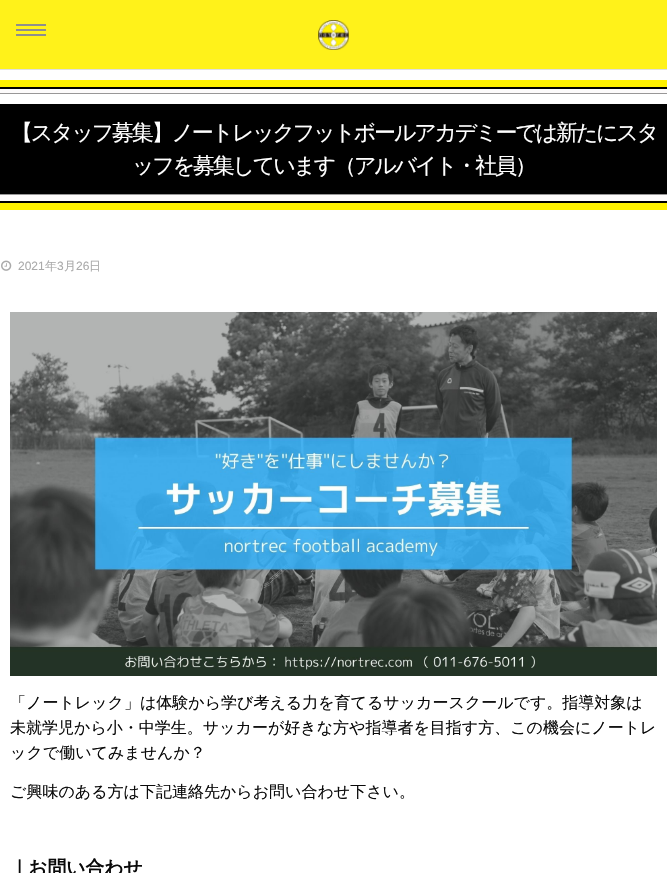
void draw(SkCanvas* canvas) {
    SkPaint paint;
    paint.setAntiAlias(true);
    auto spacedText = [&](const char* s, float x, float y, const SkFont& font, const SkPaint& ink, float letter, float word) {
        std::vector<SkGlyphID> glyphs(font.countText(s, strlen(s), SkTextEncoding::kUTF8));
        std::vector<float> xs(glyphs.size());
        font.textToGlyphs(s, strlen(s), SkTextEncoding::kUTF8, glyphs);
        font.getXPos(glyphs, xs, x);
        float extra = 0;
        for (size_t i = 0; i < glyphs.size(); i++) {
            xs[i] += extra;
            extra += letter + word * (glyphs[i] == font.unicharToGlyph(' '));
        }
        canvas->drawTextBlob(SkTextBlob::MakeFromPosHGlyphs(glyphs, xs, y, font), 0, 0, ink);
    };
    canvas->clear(0xFFFFFFFF);
    paint.setColor(0xFFFFF21A);
    canvas->drawRect(SkRect::MakeXYWH(0, 0, 667, 69), paint);
    paint.setColor(0xFFDFDFDF);
    canvas->drawRect(SkRect::MakeXYWH(0, 69, 667, 1), paint);
    paint.setColor(0xFF8E8E8E);
    canvas->drawRect(SkRect::MakeXYWH(16, 24, 30, 2), paint);
    canvas->drawRect(SkRect::MakeXYWH(16, 29, 30, 2), paint);
    canvas->drawRect(SkRect::MakeXYWH(16, 34, 30, 2), paint);
    canvas->drawImageRect(SkImages::DeferredFromEncodedData(SkData::MakeFromFileName("img1.png")), SkRect::MakeXYWH(318, 20, 31, 30), SkSamplingOptions());
    canvas->drawImageRect(SkImages::DeferredFromEncodedData(SkData::MakeFromFileName("img2.png")), SkRect::MakeXYWH(0, 80, 667, 14), SkSamplingOptions());
    paint.setColor(0xFF000000);
    canvas->drawRect(SkRect::MakeXYWH(0, 104, 667, 90), paint);
    SkFont font1(fontMgr->matchFamilyStyle("WenQuanYi Zen Hei", SkFontStyle(500, SkFontStyle::kNormal_Width, SkFontStyle::kUpright_Slant)), 22);
    font1.setSubpixel(true);
    paint.setColor(0xFFFFFFFF);
    spacedText("【スタッフ募集】ノートレックフットボールアカデミーでは新たにスタ", 11, 140, font1, paint, -2.2f, 0);
    spacedText("ッフを募集しています（アルバイト・社員）", 132, 173, font1, paint, -2.2f, 0);
    canvas->drawImageRect(SkImages::DeferredFromEncodedData(SkData::MakeFromFileName("img3.png")), SkRect::MakeXYWH(0, 194, 667, 16), SkSamplingOptions());
    canvas->drawImageRect(SkImages::DeferredFromEncodedData(SkData::MakeFromFileName("img4.png")), SkRect::MakeXYWH(1, 260, 11, 11), SkSamplingOptions());
    SkFont font2(fontMgr->matchFamilyStyle("Liberation Sans", SkFontStyle::Normal()), 12);
    font2.setSubpixel(true);
    paint.setColor(0xFFAAAAAA);
    canvas->drawString("2021", 18, 270, font2, paint);
    SkFont font3(fontMgr->matchFamilyStyle("WenQuanYi Zen Hei", SkFontStyle(500, SkFontStyle::kNormal_Width, SkFontStyle::kUpright_Slant)), 12);
    font3.setSubpixel(true);
    canvas->drawString("年", 45, 270, font3, paint);
    canvas->drawString("3", 57, 270, font2, paint);
    canvas->drawString("月", 64, 270, font3, paint);
    canvas->drawString("26", 76, 270, font2, paint);
    canvas->drawString("日", 89, 270, font3, paint);
    canvas->drawImageRect(SkImages::DeferredFromEncodedData(SkData::MakeFromFileName("img5.png")), SkRect::MakeXYWH(10, 312, 647, 364), SkSamplingOptions());
    SkFont font4(fontMgr->matchFamilyStyle("WenQuanYi Zen Hei", SkFontStyle(500, SkFontStyle::kNormal_Width, SkFontStyle::kUpright_Slant)), 16);
    font4.setSubpixel(true);
    paint.setColor(0xFF0A0A0A);
    canvas->drawString("「ノートレック」は体験から学び考える力を育てるサッカースクールです。指導対象は", 10, 708, font4, paint);
    canvas->drawString("未就学児から小・中学生。サッカーが好きな方や指導者を目指す方、この機会にノートレ", 10, 733, font4, paint);
    canvas->drawString("ックで働いてみませんか？", 10, 758, font4, paint);
    canvas->drawString("ご興味のある方は下記連絡先からお問い合わせ下さい。", 10, 797, font4, paint);
    SkFont font5(fontMgr->matchFamilyStyle("WenQuanYi Zen Hei", SkFontStyle::Bold()), 18.75f);
    font5.setSubpixel(true);
    canvas->drawString("｜お問い合わせ", 10, 874, font5, paint);
}
